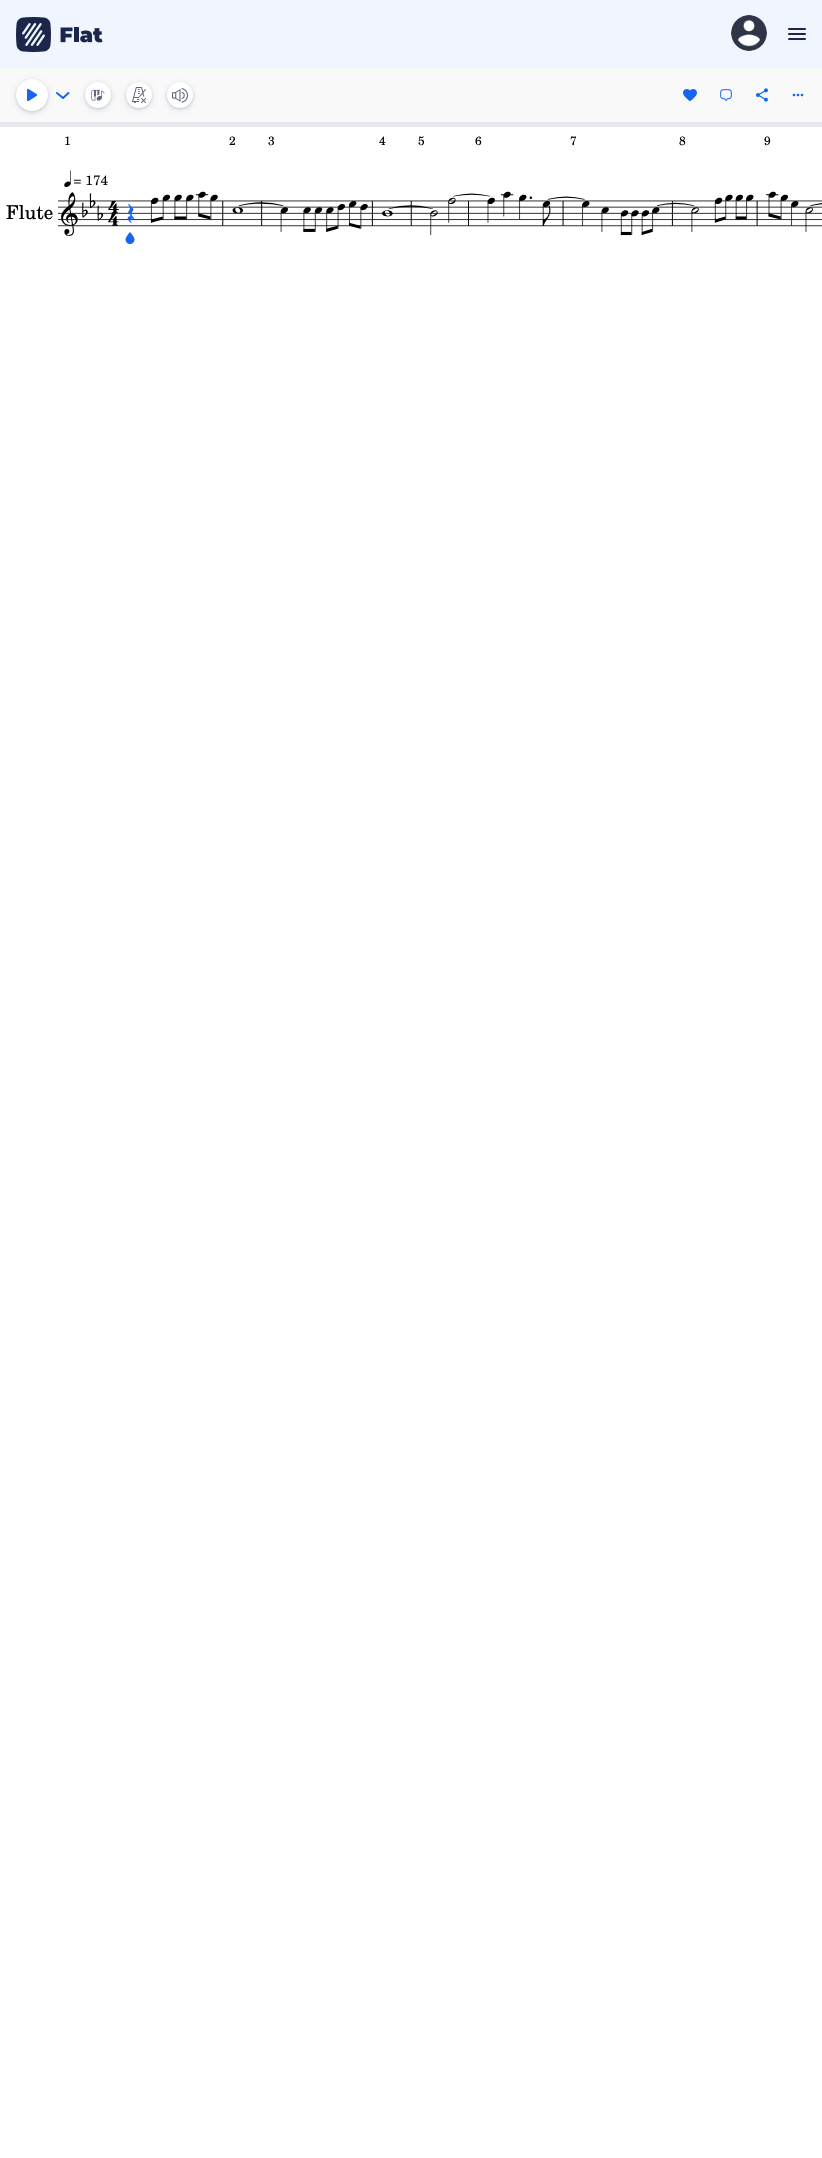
void draw(SkCanvas* canvas) {
    SkPaint paint;
    paint.setAntiAlias(true);
    canvas->clear(0xFFFFFFFF);
    paint.setColor(0xFFF1F6FE);
    canvas->drawRect(SkRect::MakeXYWH(0, 0, 822, 68), paint);
    canvas->drawImageRect(SkImages::DeferredFromEncodedData(SkData::MakeFromFileName("img1.png")), SkRect::MakeXYWH(16, 17, 87, 35), SkSamplingOptions());
    paint.setColor(0xFFFFFFFF);
    canvas->drawCircle(749, 33, 18, paint);
    canvas->drawImageRect(SkImages::DeferredFromEncodedData(SkData::MakeFromFileName("img2.png")), SkRect::MakeXYWH(731, 15, 36, 36), SkSamplingOptions());
    paint.setColor(0xFF1C264A);
    canvas->drawRoundRect(SkRect::MakeXYWH(788, 28, 18, 2), 1, 1, paint);
    canvas->drawRoundRect(SkRect::MakeXYWH(788, 33, 18, 2), 1, 1, paint);
    canvas->drawRoundRect(SkRect::MakeXYWH(788, 38, 18, 2), 1, 1, paint);
    paint.setColor(0xFFF9F9FA);
    canvas->drawRect(SkRect::MakeXYWH(0, 68, 822, 54), paint);
    paint.setColor(0x3328304F);
    paint.setMaskFilter(SkMaskFilter::MakeBlur(kNormal_SkBlurStyle, 1.5f));
    canvas->drawRoundRect(SkRect::MakeXYWH(16, 80, 32, 32), 16, 16, paint);
    paint.setMaskFilter(nullptr);
    paint.setColor(0x1A28304F);
    paint.setMaskFilter(SkMaskFilter::MakeBlur(kNormal_SkBlurStyle, 4));
    canvas->drawRoundRect(SkRect::MakeXYWH(16, 81, 32, 32), 16, 16, paint);
    paint.setMaskFilter(nullptr);
    paint.setColor(0xFFFFFFFF);
    canvas->drawCircle(32, 95, 16, paint);
    canvas->drawImageRect(SkImages::DeferredFromEncodedData(SkData::MakeFromFileName("img3.png")), SkRect::MakeXYWH(27, 88, 11, 14), SkSamplingOptions());
    paint.setStyle(SkPaint::kStroke_Style);
    paint.setStrokeWidth(2);
    paint.setStrokeCap(SkPaint::kRound_Cap);
    paint.setStrokeJoin(SkPaint::kRound_Join);
    paint.setColor(0xFF1565EF);
    canvas->drawPath(SkPathBuilder().moveTo(57, 93).lineTo(63, 98).lineTo(68.5f, 93).detach(), paint);
    paint.setStyle(SkPaint::kFill_Style);
    paint.setColor(0x3328304F);
    paint.setMaskFilter(SkMaskFilter::MakeBlur(kNormal_SkBlurStyle, 1.5f));
    canvas->drawRoundRect(SkRect::MakeXYWH(85, 83, 26, 26), 13, 13, paint);
    paint.setMaskFilter(nullptr);
    paint.setColor(0x1A28304F);
    paint.setMaskFilter(SkMaskFilter::MakeBlur(kNormal_SkBlurStyle, 4));
    canvas->drawRoundRect(SkRect::MakeXYWH(85, 84, 26, 26), 13, 13, paint);
    paint.setMaskFilter(nullptr);
    paint.setColor(0xFFFFFFFF);
    canvas->drawCircle(98, 95, 13, paint);
    canvas->drawImageRect(SkImages::DeferredFromEncodedData(SkData::MakeFromFileName("img4.png")), SkRect::MakeXYWH(91, 89, 14, 12), SkSamplingOptions());
    paint.setColor(0x3328304F);
    paint.setMaskFilter(SkMaskFilter::MakeBlur(kNormal_SkBlurStyle, 1.5f));
    canvas->drawRoundRect(SkRect::MakeXYWH(126, 83, 26, 26), 13, 13, paint);
    paint.setMaskFilter(nullptr);
    paint.setColor(0x1A28304F);
    paint.setMaskFilter(SkMaskFilter::MakeBlur(kNormal_SkBlurStyle, 4));
    canvas->drawRoundRect(SkRect::MakeXYWH(126, 84, 26, 26), 13, 13, paint);
    paint.setMaskFilter(nullptr);
    paint.setColor(0xFFFFFFFF);
    canvas->drawCircle(139, 95, 13, paint);
    canvas->drawImageRect(SkImages::DeferredFromEncodedData(SkData::MakeFromFileName("img5.png")), SkRect::MakeXYWH(132, 87, 14, 16), SkSamplingOptions());
    paint.setColor(0x3328304F);
    paint.setMaskFilter(SkMaskFilter::MakeBlur(kNormal_SkBlurStyle, 1.5f));
    canvas->drawRoundRect(SkRect::MakeXYWH(167, 83, 26, 26), 13, 13, paint);
    paint.setMaskFilter(nullptr);
    paint.setColor(0x1A28304F);
    paint.setMaskFilter(SkMaskFilter::MakeBlur(kNormal_SkBlurStyle, 4));
    canvas->drawRoundRect(SkRect::MakeXYWH(167, 84, 26, 26), 13, 13, paint);
    paint.setMaskFilter(nullptr);
    paint.setColor(0xFFFFFFFF);
    canvas->drawCircle(180, 95, 13, paint);
    canvas->drawImageRect(SkImages::DeferredFromEncodedData(SkData::MakeFromFileName("img6.png")), SkRect::MakeXYWH(172, 88, 16, 15), SkSamplingOptions());
    canvas->drawImageRect(SkImages::DeferredFromEncodedData(SkData::MakeFromFileName("img7.png")), SkRect::MakeXYWH(683, 89, 14, 12), SkSamplingOptions());
    canvas->drawImageRect(SkImages::DeferredFromEncodedData(SkData::MakeFromFileName("img8.png")), SkRect::MakeXYWH(720, 89, 12, 12), SkSamplingOptions());
    canvas->drawImageRect(SkImages::DeferredFromEncodedData(SkData::MakeFromFileName("img9.png")), SkRect::MakeXYWH(756, 88, 12, 14), SkSamplingOptions());
    canvas->drawImageRect(SkImages::DeferredFromEncodedData(SkData::MakeFromFileName("img10.png")), SkRect::MakeXYWH(792, 93, 12, 4), SkSamplingOptions());
    paint.setColor(0xFFE7E8EC);
    canvas->drawRect(SkRect::MakeXYWH(0, 122, 822, 5), paint);
    SkFont font1(fontMgr->matchFamilyStyle("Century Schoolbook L", SkFontStyle::Normal()), 12);
    font1.setSubpixel(true);
    paint.setColor(0xFF000000);
    canvas->drawString("1", 64, 145, font1, paint);
    canvas->drawString("2", 229, 145, font1, paint);
    canvas->drawString("3", 268, 145, font1, paint);
    canvas->drawString("4", 379, 145, font1, paint);
    canvas->drawString("5", 418, 145, font1, paint);
    canvas->drawString("6", 475, 145, font1, paint);
    canvas->drawString("7", 570, 145, font1, paint);
    canvas->drawString("8", 679, 145, font1, paint);
    canvas->drawString("9", 764, 145, font1, paint);
    {
        const SkColor colors[] = {0xFF919191, 0xFFFFFFFF};
        const float stops[] = {0, 1};
        SkMatrix m = SkMatrix::Translate(58, 1151).preScale(11, 999);
        paint.setShader(SkGradientShader::MakeRadial({0, 0}, 1, colors, stops, 2, SkTileMode::kClamp, 0, &m));
        paint.setAlpha(255);
    }
    canvas->drawRect(SkRect::MakeXYWH(66, 557, 3, 1188), paint);
    {
        const SkColor colors[] = {0xFFFFFFFF, 0xFFFFFFFF, 0x80FFFFFF};
        const float stops[] = {0, 0.01f, 0.03f};
        const SkPoint ends[] = {{58, 1151}, {822, 1151}};
        paint.setShader(SkGradientShader::MakeLinear(ends, colors, stops, 3, SkTileMode::kClamp));
        paint.setAlpha(255);
    }
    canvas->drawRect(SkRect::MakeXYWH(66, 557, 3, 1188), paint);
    canvas->drawImageRect(SkImages::DeferredFromEncodedData(SkData::MakeFromFileName("img11.png")), SkRect::MakeXYWH(58, 170, 764, 74), SkSamplingOptions());
    SkFont font2(fontMgr->matchFamilyStyle("Century Schoolbook L", SkFontStyle::Normal()), 19);
    font2.setSubpixel(true);
    paint.setShader(nullptr);
    paint.setColor(0xFF000000);
    canvas->drawString("Flute", 6, 219, font2, paint);
}
